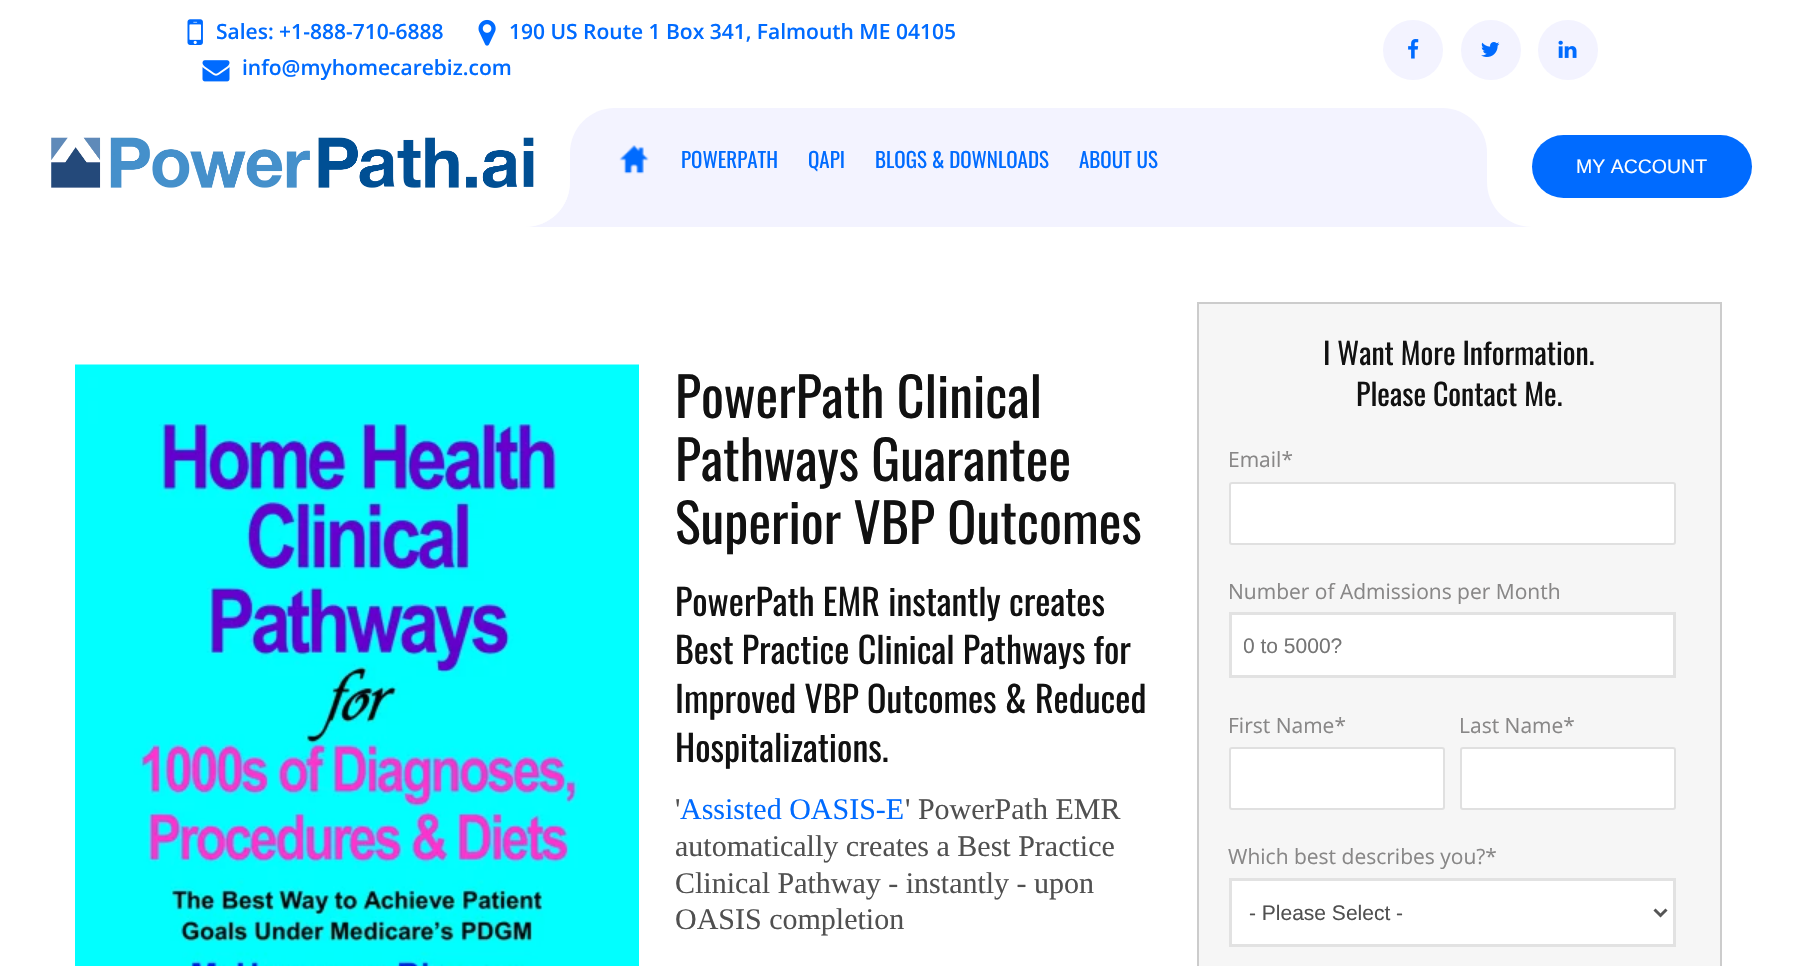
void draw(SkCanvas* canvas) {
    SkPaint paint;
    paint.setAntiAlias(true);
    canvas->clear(0xFFFFFFFF);
    canvas->drawImageRect(SkImages::DeferredFromEncodedData(SkData::MakeFromFileName("img1.png")), SkRect::MakeXYWH(187, 19, 16, 26), SkSamplingOptions());
    SkFont font1(fontMgr->matchFamilyStyle("Open Sans", SkFontStyle(600, SkFontStyle::kNormal_Width, SkFontStyle::kUpright_Slant)), 21);
    font1.setSubpixel(true);
    paint.setColor(0xFF006BFF);
    canvas->drawString("Sales: +1-888-710-6888", 216, 39, font1, paint);
    canvas->drawImageRect(SkImages::DeferredFromEncodedData(SkData::MakeFromFileName("img2.png")), SkRect::MakeXYWH(478, 19, 18, 27), SkSamplingOptions());
    canvas->drawString("190 US Route 1 Box 341, Falmouth ME 04105", 509, 39, font1, paint);
    canvas->drawImageRect(SkImages::DeferredFromEncodedData(SkData::MakeFromFileName("img3.png")), SkRect::MakeXYWH(202, 60, 28, 22), SkSamplingOptions());
    canvas->drawString("info@myhomecarebiz.com", 242, 75, font1, paint);
    paint.setColor(0xFFF3F3FF);
    canvas->drawCircle(1413, 50, 30, paint);
    canvas->drawImageRect(SkImages::DeferredFromEncodedData(SkData::MakeFromFileName("img4.png")), SkRect::MakeXYWH(1408, 39, 11, 20), SkSamplingOptions());
    canvas->drawCircle(1491, 50, 30, paint);
    canvas->drawImageRect(SkImages::DeferredFromEncodedData(SkData::MakeFromFileName("img5.png")), SkRect::MakeXYWH(1481, 42, 19, 15), SkSamplingOptions());
    canvas->drawCircle(1568, 50, 30, paint);
    canvas->drawImageRect(SkImages::DeferredFromEncodedData(SkData::MakeFromFileName("img6.png")), SkRect::MakeXYWH(1558, 40, 19, 18), SkSamplingOptions());
    canvas->drawPath(SkPathBuilder().moveTo(615, 108).lineTo(1442, 108).cubicTo(1467, 108, 1487, 128, 1487, 153).lineTo(1487, 227).lineTo(570, 227).lineTo(570, 153).cubicTo(570, 128, 590, 108, 615, 108).close().detach(), paint);
    canvas->drawRect(SkRect::MakeXYWH(525, 167, 1007, 60), paint);
    paint.setColor(0xFFFFFFFF);
    canvas->drawRoundRect(SkRect::MakeXYWH(45, 101, 525, 126), 45, 45, paint);
    canvas->save();
    canvas->clipPath(SkPathBuilder().moveTo(90, 101).lineTo(525, 101).cubicTo(550, 101, 570, 121, 570, 146).lineTo(570, 182).cubicTo(570, 207, 550, 227, 525, 227).lineTo(90, 227).cubicTo(65, 227, 45, 207, 45, 182).lineTo(45, 146).cubicTo(45, 121, 65, 101, 90, 101).close().detach(), true);
    canvas->drawRoundRect(SkRect::MakeXYWH(45, 111, 525, 126), 45, 45, paint);
    canvas->restore();
    canvas->drawImageRect(SkImages::DeferredFromEncodedData(SkData::MakeFromFileName("img7.png")), SkRect::MakeXYWH(51, 137, 483, 51), SkSamplingOptions());
    canvas->drawImageRect(SkImages::DeferredFromEncodedData(SkData::MakeFromFileName("img8.png")), SkRect::MakeXYWH(619, 145, 30, 29), SkSamplingOptions());
    SkFont font2(fontMgr->matchFamilyStyle("Oswald", SkFontStyle::Normal()), 21);
    font2.setSubpixel(true);
    paint.setColor(0xFF006BFF);
    canvas->drawString("POWERPATH", 681, 168, font2, paint);
    canvas->drawString("QAPI", 808, 168, font2, paint);
    canvas->drawString("BLOGS & DOWNLOADS", 875, 168, font2, paint);
    canvas->drawString("ABOUT US", 1079, 168, font2, paint);
    paint.setColor(0xFFFFFFFF);
    canvas->drawPath(SkPathBuilder().moveTo(1487, 108).lineTo(1752, 108).lineTo(1752, 227).lineTo(1532, 227).cubicTo(1507, 227, 1487, 207, 1487, 182).close().detach(), paint);
    paint.setColor(0xFF006BFF);
    canvas->drawRoundRect(SkRect::MakeXYWH(1532, 135, 220, 63), 31.5f, 31.5f, paint);
    SkFont font3(fontMgr->matchFamilyStyle("Liberation Sans", SkFontStyle::Normal()), 19.5f);
    font3.setSubpixel(true);
    paint.setColor(0xFFFFFFFF);
    canvas->drawString("MY ACCOUNT", 1576, 173, font3, paint);
    canvas->drawImageRect(SkImages::DeferredFromEncodedData(SkData::MakeFromFileName("img9.png")), SkRect::MakeXYWH(75, 364, 564, 602), SkSamplingOptions());
    SkFont font4(fontMgr->matchFamilyStyle("Oswald", SkFontStyle::Normal()), 54);
    font4.setSubpixel(true);
    paint.setColor(0xFF111111);
    canvas->drawString("PowerPath Clinical", 675, 418, font4, paint);
    canvas->drawString("Pathways Guarantee", 675, 481, font4, paint);
    canvas->drawString("Superior VBP Outcomes", 675, 544, font4, paint);
    SkFont font5(fontMgr->matchFamilyStyle("Oswald", SkFontStyle::Normal()), 36);
    font5.setSubpixel(true);
    canvas->drawString("PowerPath EMR instantly creates", 675, 616, font5, paint);
    canvas->drawString("Best Practice Clinical Pathways for", 675, 664, font5, paint);
    canvas->drawString("Improved VBP Outcomes & Reduced", 675, 713, font5, paint);
    canvas->drawString("Hospitalizations.", 675, 762, font5, paint);
    SkFont font6(fontMgr->matchFamilyStyle("Liberation Serif", SkFontStyle::Normal()), 30);
    font6.setSubpixel(true);
    paint.setColor(0xFF505050);
    canvas->drawString("'", 675, 819, font6, paint);
    paint.setColor(0xFF006BFF);
    canvas->drawString("Assisted OASIS-E", 680, 819, font6, paint);
    paint.setColor(0xFF505050);
    canvas->drawString("' PowerPath EMR", 905, 819, font6, paint);
    canvas->drawString("automatically creates a Best Practice", 675, 856, font6, paint);
    canvas->drawString("Clinical Pathway - instantly - upon", 675, 893, font6, paint);
    canvas->drawString("OASIS completion", 675, 929, font6, paint);
    paint.setColor(0xFFF6F6F6);
    canvas->drawRect(SkRect::MakeXYWH(1198, 303, 523, 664), paint);
    paint.setStyle(SkPaint::kStroke_Style);
    paint.setStrokeWidth(2);
    paint.setColor(0xFFCCCCCC);
    canvas->drawRect(SkRect::MakeXYWH(1198, 303, 523, 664), paint);
    SkFont font7(fontMgr->matchFamilyStyle("Oswald", SkFontStyle::Normal()), 30);
    font7.setSubpixel(true);
    paint.setStyle(SkPaint::kFill_Style);
    paint.setColor(0xFF111111);
    canvas->drawString("I Want More Information.", 1323, 365, font7, paint);
    canvas->drawString("Please Contact Me.", 1356, 406, font7, paint);
    SkFont font8(fontMgr->matchFamilyStyle("Open Sans", SkFontStyle::Normal()), 21);
    font8.setSubpixel(true);
    paint.setColor(0xFF888787);
    canvas->drawString("Email*", 1228, 467, font8, paint);
    paint.setColor(0xFFFFFFFF);
    canvas->drawRoundRect(SkRect::MakeXYWH(1230, 483, 445, 61), 2, 2, paint);
    paint.setStyle(SkPaint::kStroke_Style);
    paint.setColor(0xFFE0E0E0);
    canvas->drawRoundRect(SkRect::MakeXYWH(1230, 483, 445, 61), 2, 2, paint);
    paint.setStyle(SkPaint::kFill_Style);
    paint.setColor(0xFF888787);
    canvas->drawString("Number of Admissions per Month", 1228, 599, font8, paint);
    paint.setColor(0xFFFFFFFF);
    canvas->drawRect(SkRect::MakeXYWH(1230.5f, 613.5f, 444, 63), paint);
    paint.setStyle(SkPaint::kStroke_Style);
    paint.setStrokeWidth(3);
    paint.setColor(0xFFE2E2E2);
    canvas->drawRect(SkRect::MakeXYWH(1230.5f, 613.5f, 444, 63), paint);
    canvas->save();
    canvas->clipRect(SkRect::MakeXYWH(1244, 633, 394, 24));
    SkFont font9(fontMgr->matchFamilyStyle("Liberation Sans", SkFontStyle::Normal()), 21);
    font9.setSubpixel(true);
    paint.setStyle(SkPaint::kFill_Style);
    paint.setColor(0xFF757575);
    canvas->drawString("0 to 5000?", 1243, 653, font9, paint);
    canvas->restore();
    paint.setColor(0xFF888787);
    canvas->drawString("First Name*", 1228, 733, font8, paint);
    paint.setColor(0xFFFFFFFF);
    canvas->drawRoundRect(SkRect::MakeXYWH(1230, 748, 214, 61), 2, 2, paint);
    paint.setStyle(SkPaint::kStroke_Style);
    paint.setStrokeWidth(2);
    paint.setColor(0xFFE0E0E0);
    canvas->drawRoundRect(SkRect::MakeXYWH(1230, 748, 214, 61), 2, 2, paint);
    paint.setStyle(SkPaint::kFill_Style);
    paint.setColor(0xFF888787);
    canvas->drawString("Last Name*", 1459, 733, font8, paint);
    paint.setColor(0xFFFFFFFF);
    canvas->drawRoundRect(SkRect::MakeXYWH(1461, 748, 214, 61), 2, 2, paint);
    paint.setStyle(SkPaint::kStroke_Style);
    paint.setColor(0xFFE0E0E0);
    canvas->drawRoundRect(SkRect::MakeXYWH(1461, 748, 214, 61), 2, 2, paint);
    paint.setStyle(SkPaint::kFill_Style);
    paint.setColor(0xFF888787);
    canvas->drawString("Which best describes you?*", 1228, 864, font8, paint);
    paint.setColor(0xFFFFFFFF);
    canvas->drawRect(SkRect::MakeXYWH(1230.5f, 879.5f, 444, 66), paint);
    paint.setStyle(SkPaint::kStroke_Style);
    paint.setStrokeWidth(3);
    paint.setColor(0xFFE2E2E2);
    canvas->drawRect(SkRect::MakeXYWH(1230.5f, 879.5f, 444, 66), paint);
    paint.setColor(0xFF555555);
    canvas->drawPath(SkPathBuilder().moveTo(1654.5f, 909.5f).lineTo(1660.5f, 915.5f).lineTo(1666.5f, 909.5f).detach(), paint);
    paint.setStyle(SkPaint::kFill_Style);
    paint.setColor(0xFF505050);
    canvas->drawString("- Please Select -", 1249, 920, font9, paint);
}
